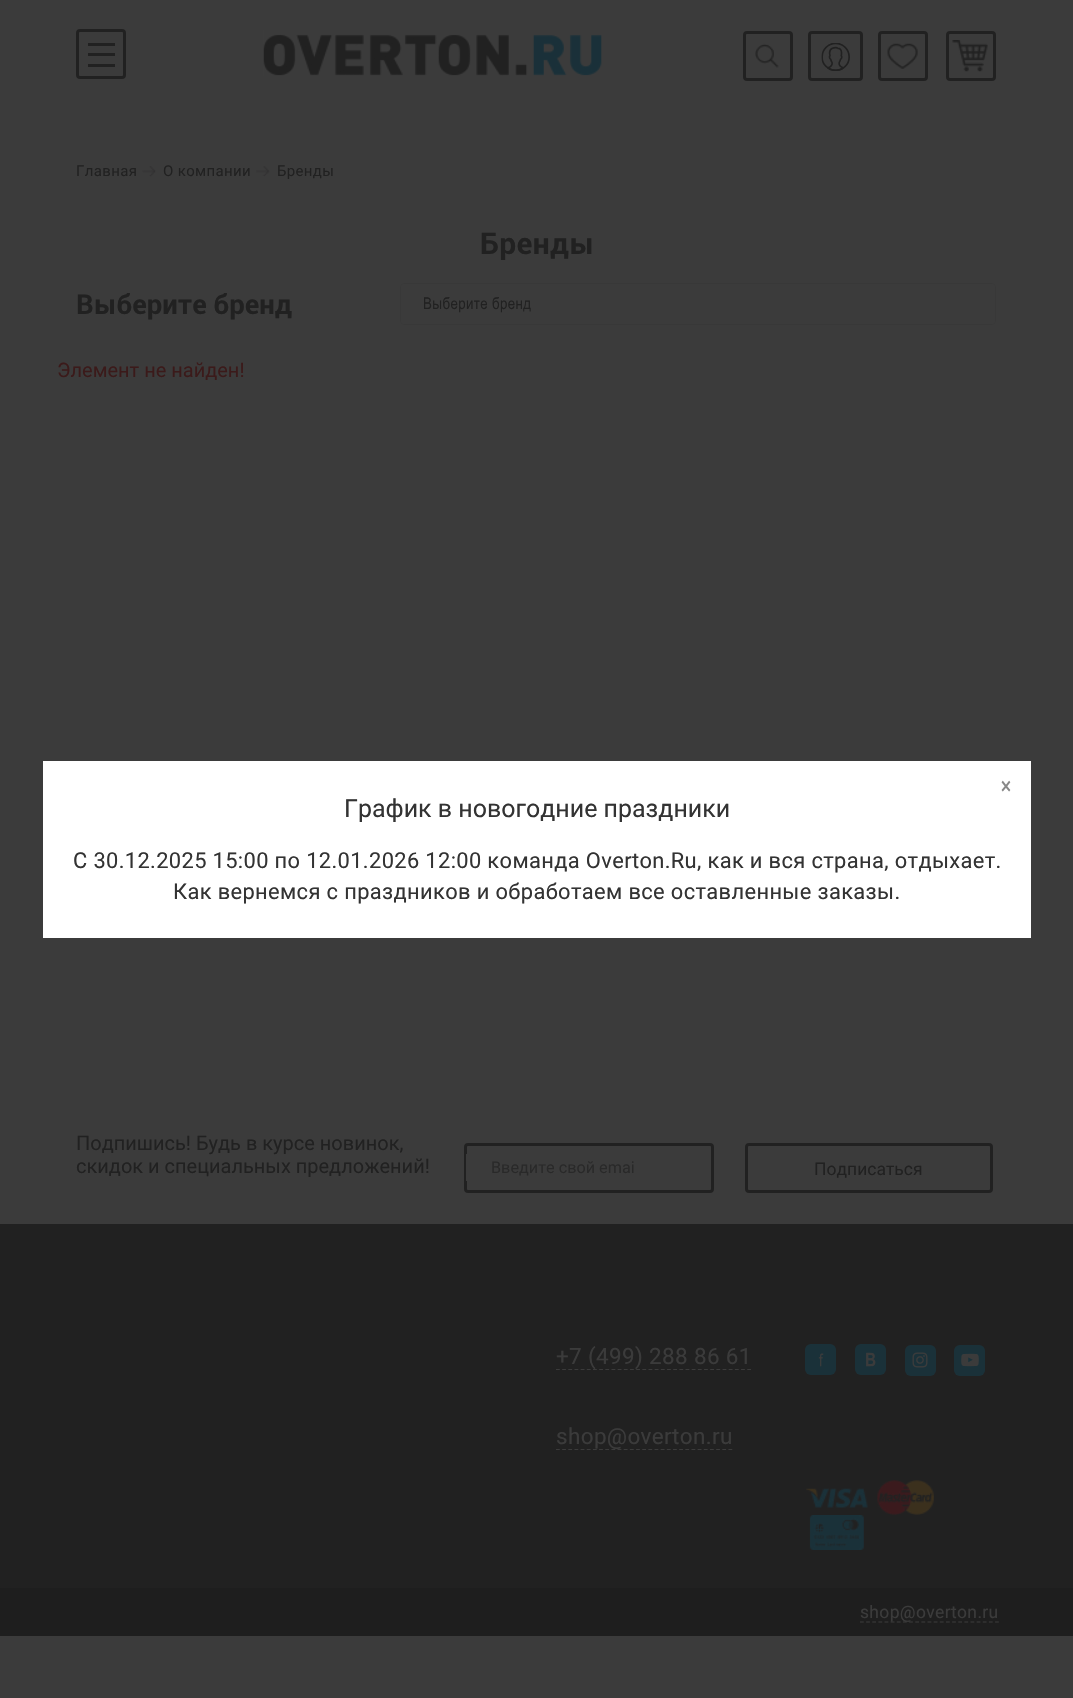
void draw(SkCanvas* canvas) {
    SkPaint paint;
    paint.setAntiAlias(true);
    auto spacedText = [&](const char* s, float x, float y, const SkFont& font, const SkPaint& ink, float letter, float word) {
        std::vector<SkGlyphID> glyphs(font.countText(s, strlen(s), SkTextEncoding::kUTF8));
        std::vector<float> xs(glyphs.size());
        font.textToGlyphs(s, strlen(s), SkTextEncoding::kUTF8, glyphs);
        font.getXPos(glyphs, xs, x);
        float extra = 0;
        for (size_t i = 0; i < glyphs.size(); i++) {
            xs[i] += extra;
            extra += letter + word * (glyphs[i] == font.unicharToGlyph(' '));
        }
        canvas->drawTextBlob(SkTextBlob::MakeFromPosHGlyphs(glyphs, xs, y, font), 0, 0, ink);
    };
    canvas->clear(0xFF3B3B3B);
    paint.setStyle(SkPaint::kStroke_Style);
    paint.setStrokeWidth(3);
    paint.setColor(0xFF212121);
    canvas->drawRoundRect(SkRect::MakeXYWH(77.5f, 30.5f, 47, 47), 2.5f, 2.5f, paint);
    paint.setStyle(SkPaint::kFill_Style);
    canvas->drawRect(SkRect::MakeXYWH(88, 43, 27, 3), paint);
    canvas->drawRect(SkRect::MakeXYWH(88, 53, 27, 3), paint);
    canvas->drawRect(SkRect::MakeXYWH(88, 64, 27, 3), paint);
    canvas->drawImageRect(SkImages::DeferredFromEncodedData(SkData::MakeFromFileName("img1.png")), SkRect::MakeXYWH(263, 30, 339, 46), SkSamplingOptions());
    canvas->drawImageRect(SkImages::DeferredFromEncodedData(SkData::MakeFromFileName("img2.png")), SkRect::MakeXYWH(755, 43, 24, 25), SkSamplingOptions());
    paint.setStyle(SkPaint::kStroke_Style);
    canvas->drawRoundRect(SkRect::MakeXYWH(744.5f, 32.5f, 47, 47), 2.5f, 2.5f, paint);
    canvas->drawRoundRect(SkRect::MakeXYWH(809.5f, 32.5f, 52, 47), 2.5f, 2.5f, paint);
    canvas->drawImageRect(SkImages::DeferredFromEncodedData(SkData::MakeFromFileName("img3.png")), SkRect::MakeXYWH(821, 43, 29, 28), SkSamplingOptions());
    canvas->drawRoundRect(SkRect::MakeXYWH(879.5f, 32.5f, 47, 47), 2.5f, 2.5f, paint);
    canvas->drawImageRect(SkImages::DeferredFromEncodedData(SkData::MakeFromFileName("img4.png")), SkRect::MakeXYWH(887, 43, 31, 26), SkSamplingOptions());
    canvas->drawRoundRect(SkRect::MakeXYWH(947.5f, 32.5f, 47, 47), 2.5f, 2.5f, paint);
    canvas->drawImageRect(SkImages::DeferredFromEncodedData(SkData::MakeFromFileName("img5.png")), SkRect::MakeXYWH(952, 40, 36, 32), SkSamplingOptions());
    SkFont font1(fontMgr->matchFamilyStyle("Roboto", SkFontStyle::Normal()), 15);
    font1.setSubpixel(true);
    paint.setStyle(SkPaint::kFill_Style);
    spacedText("Главная", 76, 176, font1, paint, 0.35f, 0);
    canvas->drawImageRect(SkImages::DeferredFromEncodedData(SkData::MakeFromFileName("img6.png")), SkRect::MakeXYWH(142, 166, 14, 11), SkSamplingOptions());
    spacedText("О компании", 163, 176, font1, paint, 0.35f, 0);
    canvas->drawImageRect(SkImages::DeferredFromEncodedData(SkData::MakeFromFileName("img7.png")), SkRect::MakeXYWH(256, 166, 14, 11), SkSamplingOptions());
    spacedText("Бренды", 277, 176, font1, paint, 0.35f, 0);
    SkFont font2(fontMgr->matchFamilyStyle("Roboto", SkFontStyle::Bold()), 30);
    font2.setSubpixel(true);
    spacedText("Бренды", 480, 254, font2, paint, 0.35f, 0);
    SkFont font3(fontMgr->matchFamilyStyle("Roboto", SkFontStyle::Bold()), 27.5f);
    font3.setSubpixel(true);
    canvas->drawString("Выберите бренд", 76, 314, font3, paint);
    paint.setStyle(SkPaint::kStroke_Style);
    paint.setStrokeWidth(1);
    paint.setColor(0xFF383838);
    canvas->drawRoundRect(SkRect::MakeXYWH(400.5f, 283.5f, 595, 41), 3.5f, 3.5f, paint);
    SkFont font4(fontMgr->matchFamilyStyle("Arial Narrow", SkFontStyle::Normal()), 16.25f);
    font4.setSubpixel(true);
    paint.setStyle(SkPaint::kFill_Style);
    paint.setColor(0xFF212121);
    spacedText("Выберите бренд", 423, 309, font4, paint, 0.35f, 0);
    SkFont font5(fontMgr->matchFamilyStyle("Roboto", SkFontStyle::Normal()), 20);
    font5.setSubpixel(true);
    paint.setColor(0xFF3B1A1A);
    canvas->drawString("Элемент не найден!", 57, 377, font5, paint);
    paint.setColor(0xFFFFFFFF);
    canvas->drawRect(SkRect::MakeXYWH(43, 761, 988, 177), paint);
    SkFont font6(fontMgr->matchFamilyStyle("Arial Narrow", SkFontStyle::Normal()), 25);
    font6.setSubpixel(true);
    paint.setColor(0xFF888888);
    canvas->drawString("×", 1000, 795, font6, paint);
    SkFont font7(fontMgr->matchFamilyStyle("Roboto", SkFontStyle::Normal()), 25);
    font7.setSubpixel(true);
    paint.setColor(0xFF333333);
    canvas->drawString("График в новогодние праздники", 344, 817, font7, paint);
    SkFont font8(fontMgr->matchFamilyStyle("Roboto", SkFontStyle::Normal()), 21.9f);
    font8.setSubpixel(true);
    spacedText("С 30.12.2025 15:00 по 12.01.2026 12:00 команда Overton.Ru, как и вся страна, отдыхает.", 73, 868, font8, paint, 0.35f, 0);
    spacedText("Как вернемся с праздников и обработаем все оставленные заказы.", 173, 899, font8, paint, 0.35f, 0);
    paint.setColor(0xFF212121);
    canvas->drawString("Подпишись! Будь в курсе новинок,", 76, 1150, font5, paint);
    canvas->drawString("скидок и специальных предложений!", 76, 1173, font5, paint);
    paint.setStyle(SkPaint::kStroke_Style);
    paint.setStrokeWidth(3);
    canvas->drawRoundRect(SkRect::MakeXYWH(465.5f, 1144.5f, 247, 47), 2.5f, 2.5f, paint);
    paint.setStyle(SkPaint::kFill_Style);
    paint.setColor(0xFF3B3B3B);
    canvas->drawRect(SkRect::MakeXYWH(466, 1154, 1, 27), paint);
    SkFont font9(fontMgr->matchFamilyStyle("Roboto", SkFontStyle::Normal()), 16.25f);
    font9.setSubpixel(true);
    paint.setColor(0xFF292929);
    canvas->drawString("Введите свой emai", 491, 1173, font9, paint);
    paint.setStyle(SkPaint::kStroke_Style);
    paint.setColor(0xFF212121);
    canvas->drawRoundRect(SkRect::MakeXYWH(746.5f, 1144.5f, 245, 47), 2.5f, 2.5f, paint);
    SkFont font10(fontMgr->matchFamilyStyle("Roboto", SkFontStyle::Normal()), 17.5f);
    font10.setSubpixel(true);
    paint.setStyle(SkPaint::kFill_Style);
    canvas->drawString("Подписаться", 814, 1175, font10, paint);
    canvas->drawRect(SkRect::MakeXYWH(0, 1224, 1073, 364), paint);
    paint.setStyle(SkPaint::kStroke_Style);
    paint.setStrokeWidth(1.2f);
    paint.setColor(0xFF3B3B3B);
    paint.setPathEffect(SkDashPathEffect::Make({{3.75f, 2.42f}}, 0));
    canvas->drawPath(SkPathBuilder().moveTo(556, 1369.5f).lineTo(751, 1369.5f).detach(), paint);
    paint.setPathEffect(nullptr);
    SkFont font11(fontMgr->matchFamilyStyle("Roboto", SkFontStyle::Normal()), 22.5f);
    font11.setSubpixel(true);
    paint.setStyle(SkPaint::kFill_Style);
    spacedText("+7 (499) 288 86 61", 556, 1364, font11, paint, 0.35f, 0);
    paint.setStyle(SkPaint::kStroke_Style);
    paint.setPathEffect(SkDashPathEffect::Make({{3.75f, 2.41f}}, 0));
    canvas->drawPath(SkPathBuilder().moveTo(556, 1449.5f).lineTo(732.5f, 1449.5f).detach(), paint);
    paint.setPathEffect(nullptr);
    paint.setStyle(SkPaint::kFill_Style);
    spacedText("shop@overton.ru", 556, 1444, font11, paint, 0.35f, 0);
    paint.setColor(0xFF1A3139);
    canvas->drawRoundRect(SkRect::MakeXYWH(805, 1344, 31, 31), 6, 6, paint);
    canvas->drawImageRect(SkImages::DeferredFromEncodedData(SkData::MakeFromFileName("img8.png")), SkRect::MakeXYWH(818, 1353, 6, 14), SkSamplingOptions());
    canvas->drawRoundRect(SkRect::MakeXYWH(855, 1344, 31, 31), 6, 6, paint);
    canvas->drawImageRect(SkImages::DeferredFromEncodedData(SkData::MakeFromFileName("img9.png")), SkRect::MakeXYWH(866, 1352, 10, 15), SkSamplingOptions());
    canvas->drawRoundRect(SkRect::MakeXYWH(905, 1345, 31, 31), 6, 6, paint);
    canvas->drawImageRect(SkImages::DeferredFromEncodedData(SkData::MakeFromFileName("img10.png")), SkRect::MakeXYWH(912, 1352, 16, 16), SkSamplingOptions());
    canvas->drawRoundRect(SkRect::MakeXYWH(954, 1345, 31, 31), 6, 6, paint);
    canvas->drawImageRect(SkImages::DeferredFromEncodedData(SkData::MakeFromFileName("img11.png")), SkRect::MakeXYWH(961, 1353, 18, 14), SkSamplingOptions());
    canvas->drawImageRect(SkImages::DeferredFromEncodedData(SkData::MakeFromFileName("img12.png")), SkRect::MakeXYWH(806, 1488, 62, 20), SkSamplingOptions());
    canvas->drawImageRect(SkImages::DeferredFromEncodedData(SkData::MakeFromFileName("img13.png")), SkRect::MakeXYWH(877, 1480, 57, 35), SkSamplingOptions());
    canvas->drawImageRect(SkImages::DeferredFromEncodedData(SkData::MakeFromFileName("img14.png")), SkRect::MakeXYWH(809, 1515, 55, 35), SkSamplingOptions());
    paint.setColor(0xFF1E1E1E);
    canvas->drawRect(SkRect::MakeXYWH(0, 1588, 1073, 48), paint);
    paint.setStyle(SkPaint::kStroke_Style);
    paint.setColor(0xFF3B3B3B);
    paint.setPathEffect(SkDashPathEffect::Make({{3.75f, 2.39f}}, 0));
    canvas->drawPath(SkPathBuilder().moveTo(860, 1622).lineTo(999, 1622).detach(), paint);
    paint.setPathEffect(nullptr);
    paint.setStyle(SkPaint::kFill_Style);
    spacedText("shop@overton.ru", 860, 1618, font10, paint, 0.35f, 0);
}
